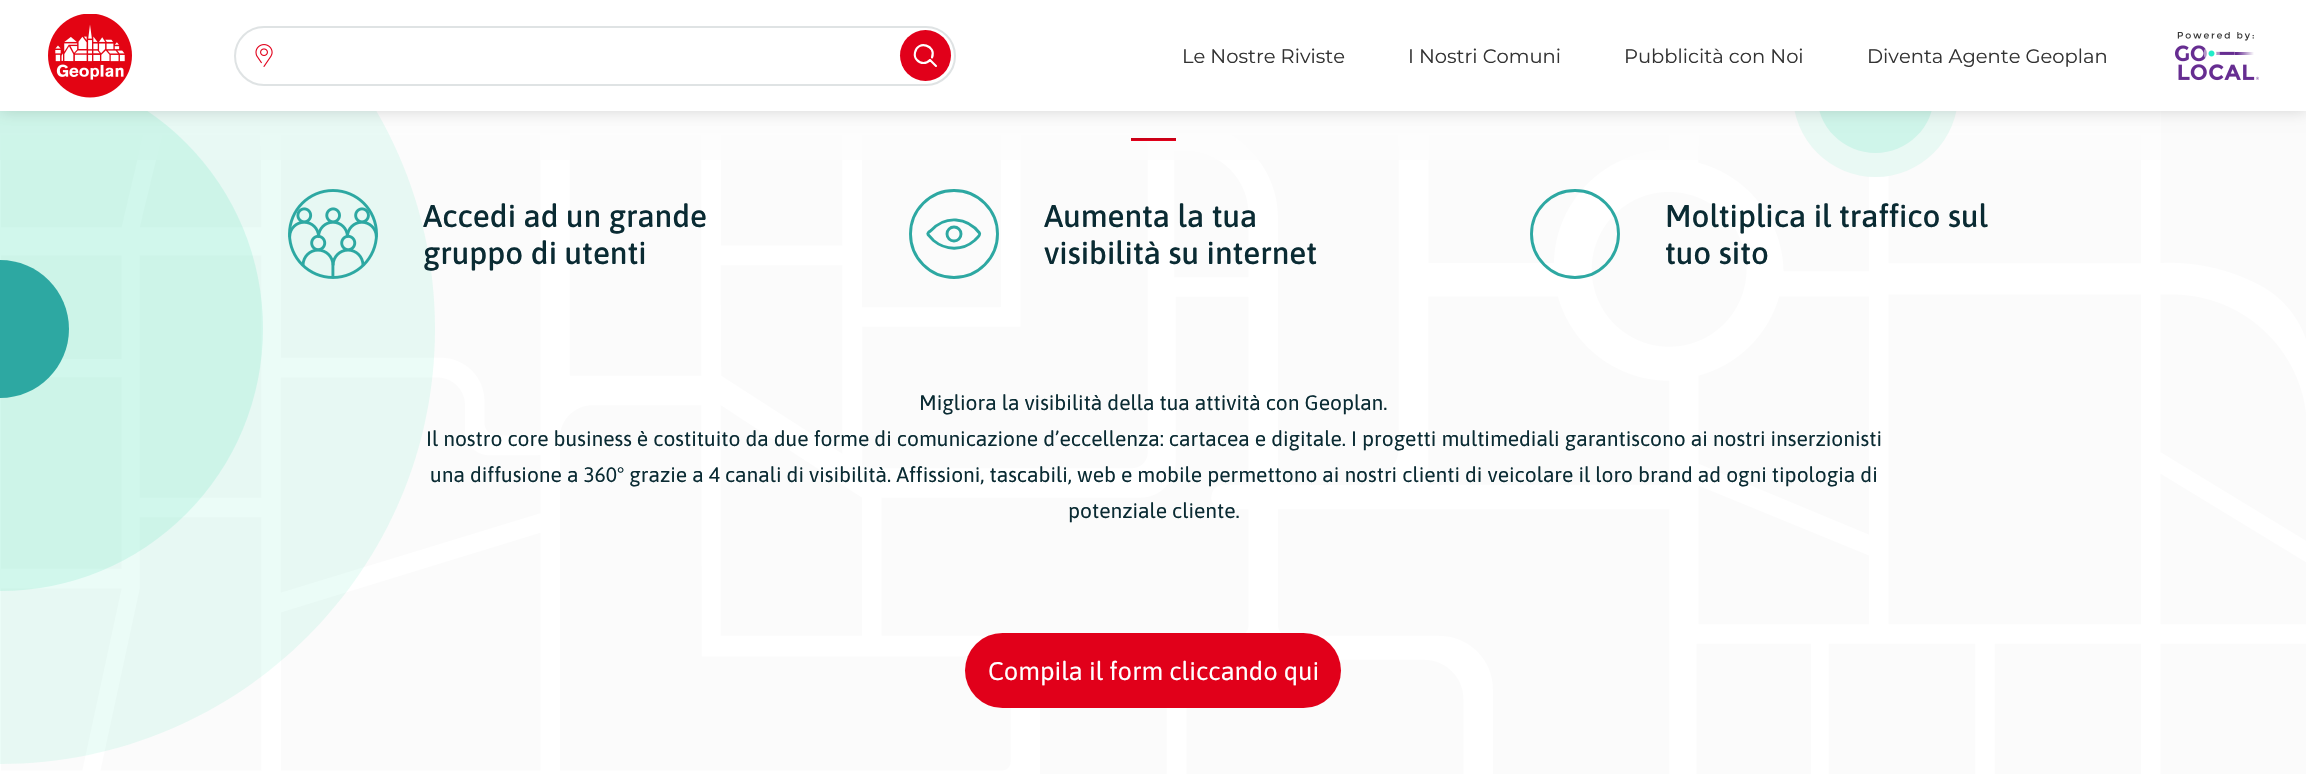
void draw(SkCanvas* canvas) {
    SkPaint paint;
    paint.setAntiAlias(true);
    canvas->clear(0xFFFFFFFF);
    canvas->drawImageRect(SkImages::DeferredFromEncodedData(SkData::MakeFromFileName("img4.png")), SkRect::MakeXYWH(1, 111, 2305, 663), SkSamplingOptions());
    {
        const SkColor colors[] = {0xFFFCFCFC, 0xFFFCFCFC, 0x00FCFCFC};
        const float stops[] = {0, 0.5f, 1};
        const SkPoint ends[] = {{1154, -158}, {1154, 329}};
        paint.setShader(SkGradientShader::MakeLinear(ends, colors, stops, 3, SkTileMode::kClamp));
        paint.setAlpha(255);
    }
    canvas->drawRect(SkRect::MakeXYWH(0, 111, 2160, 49), paint);
    paint.setShader(nullptr);
    paint.setColor(0x1A3EDEAE);
    canvas->drawPath(SkPathBuilder().moveTo(0, -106).cubicTo(240, -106, 435, 89, 435, 329).cubicTo(435, 569, 240, 764, 0, 764).close().detach(), paint);
    paint.setColor(0x263EDEAE);
    canvas->drawCircle(0.5f, 328.5f, 262.5f, paint);
    paint.setColor(0xFFE9F9F4);
    canvas->drawCircle(1875.5f, 94.5f, 82.5f, paint);
    paint.setColor(0xFFCFF5EA);
    canvas->drawCircle(1875.5f, 94.5f, 58.5f, paint);
    paint.setColor(0x26000000);
    paint.setMaskFilter(SkMaskFilter::MakeBlur(kNormal_SkBlurStyle, 7.5f));
    canvas->drawRect(SkRect::MakeXYWH(0, 0, 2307, 111), paint);
    paint.setMaskFilter(nullptr);
    paint.setColor(0xFFFFFFFF);
    canvas->drawRect(SkRect::MakeXYWH(0, 0, 2306, 111), paint);
    canvas->drawImageRect(SkImages::DeferredFromEncodedData(SkData::MakeFromFileName("img1.png")), SkRect::MakeXYWH(48, 14, 84, 84), SkSamplingOptions());
    paint.setStyle(SkPaint::kStroke_Style);
    paint.setStrokeWidth(2);
    paint.setColor(0xFFDFE3E4);
    canvas->drawRoundRect(SkRect::MakeXYWH(235, 27, 720, 58), 29, 29, paint);
    canvas->drawImageRect(SkImages::DeferredFromEncodedData(SkData::MakeFromFileName("img2.png")), SkRect::MakeXYWH(255, 44, 18, 23), SkSamplingOptions());
    paint.setStyle(SkPaint::kFill_Style);
    paint.setColor(0xFFE1001A);
    canvas->drawCircle(925.5f, 55.5f, 25.5f, paint);
    paint.setStyle(SkPaint::kStroke_Style);
    paint.setStrokeWidth(2.1f);
    paint.setStrokeCap(SkPaint::kRound_Cap);
    paint.setStrokeJoin(SkPaint::kRound_Join);
    paint.setColor(0xFFFFFFFF);
    canvas->drawPath(SkPathBuilder().moveTo(932, 57.5f).cubicTo(937, 45.5f, 917.5f, 39.5f, 915, 52.5f).cubicTo(914.5f, 55, 915, 58, 917, 60).cubicTo(920.5f, 64, 926.5f, 64, 930, 60).moveTo(930, 60).lineTo(936, 66).detach(), paint);
    SkFont font1(fontMgr->matchFamilyStyle("Montserrat", SkFontStyle::Normal()), 19.5f);
    font1.setSubpixel(true);
    paint.setStyle(SkPaint::kFill_Style);
    paint.setColor(0xFF333333);
    canvas->drawString("Le Nostre Riviste", 1182, 63, font1, paint);
    canvas->drawString("I Nostri Comuni", 1408, 63, font1, paint);
    canvas->drawString("Pubblicità con Noi", 1624, 63, font1, paint);
    canvas->drawString("Diventa Agente Geoplan", 1867, 63, font1, paint);
    canvas->drawImageRect(SkImages::DeferredFromEncodedData(SkData::MakeFromFileName("img3.png")), SkRect::MakeXYWH(2175, 32, 84, 49), SkSamplingOptions());
    paint.setColor(0xFF2DA8A2);
    canvas->drawPath(SkPathBuilder().moveTo(0, 260).cubicTo(38, 260, 69, 291, 69, 329).cubicTo(69, 367, 38, 398, 0, 398).close().detach(), paint);
    paint.setColor(0xFFE1001A);
    canvas->drawRect(SkRect::MakeXYWH(1131, 140, 45, 1), paint);
    paint.setColor(0xFFCB0017);
    canvas->drawRect(SkRect::MakeXYWH(1131, 138, 45, 2), paint);
    canvas->drawImageRect(SkImages::DeferredFromEncodedData(SkData::MakeFromFileName("img5.png")), SkRect::MakeXYWH(288, 189, 90, 90), SkSamplingOptions());
    SkFont font2(fontMgr->matchFamilyStyle("Asap", SkFontStyle(500, SkFontStyle::kNormal_Width, SkFontStyle::kUpright_Slant)), 31.5f);
    font2.setSubpixel(true);
    paint.setColor(0xFF0A2B33);
    canvas->drawString("Accedi ad un grande", 423, 227, font2, paint);
    canvas->drawString("gruppo di utenti", 423, 264, font2, paint);
    paint.setStyle(SkPaint::kStroke_Style);
    paint.setStrokeWidth(2.9f);
    paint.setStrokeCap(SkPaint::kButt_Cap);
    paint.setStrokeJoin(SkPaint::kMiter_Join);
    paint.setColor(0xFF2DA8A2);
    canvas->drawCircle(954, 234, 43.5f, paint);
    canvas->drawCircle(954, 234, 7, paint);
    paint.setStrokeCap(SkPaint::kRound_Cap);
    canvas->drawPath(SkPathBuilder().moveTo(979.5f, 233).cubicTo(981, 235, 975.5f, 239.5f, 974.5f, 240.5f).cubicTo(962.5f, 251, 945.5f, 250.5f, 933.5f, 240.5f).lineTo(928, 234.5f).cubicTo(927, 233, 929.5f, 231.5f, 931, 230.5f).cubicTo(945.5f, 215, 967, 217, 979.5f, 233).close().detach(), paint);
    paint.setStyle(SkPaint::kFill_Style);
    paint.setColor(0xFF0A2B33);
    canvas->drawString("Aumenta la tua", 1044, 227, font2, paint);
    canvas->drawString("visibilità su internet", 1044, 264, font2, paint);
    paint.setStyle(SkPaint::kStroke_Style);
    paint.setStrokeCap(SkPaint::kButt_Cap);
    paint.setColor(0xFF2DA8A2);
    canvas->drawCircle(1575, 234, 43.5f, paint);
    paint.setStyle(SkPaint::kFill_Style);
    paint.setColor(0xFF0A2B33);
    canvas->drawString("Moltiplica il traffico sul", 1665, 227, font2, paint);
    canvas->drawString("tuo sito", 1665, 264, font2, paint);
    SkFont font3(fontMgr->matchFamilyStyle("Asap", SkFontStyle::Normal()), 21);
    font3.setSubpixel(true);
    canvas->drawString("Migliora la visibilità della tua attività con Geoplan.", 919, 410, font3, paint);
    canvas->drawString("Il nostro core business è costituito da due forme di comunicazione d’eccellenza: cartacea e digitale. I progetti multimediali garantiscono ai nostri inserzionisti", 426, 446, font3, paint);
    canvas->drawString("una diffusione a 360° grazie a 4 canali di visibilità. Affissioni, tascabili, web e mobile permettono ai nostri clienti di veicolare il loro brand ad ogni tipologia di", 430, 482, font3, paint);
    canvas->drawString("potenziale cliente.", 1068, 518, font3, paint);
    paint.setColor(0xFFE1001A);
    canvas->drawRoundRect(SkRect::MakeXYWH(965, 633, 376, 75), 37.5f, 37.5f, paint);
    SkFont font4(fontMgr->matchFamilyStyle("Asap", SkFontStyle::Normal()), 25.5f);
    font4.setSubpixel(true);
    paint.setColor(0xFFFFFFFF);
    canvas->drawString("Compila il form cliccando qui", 988, 680, font4, paint);
}
